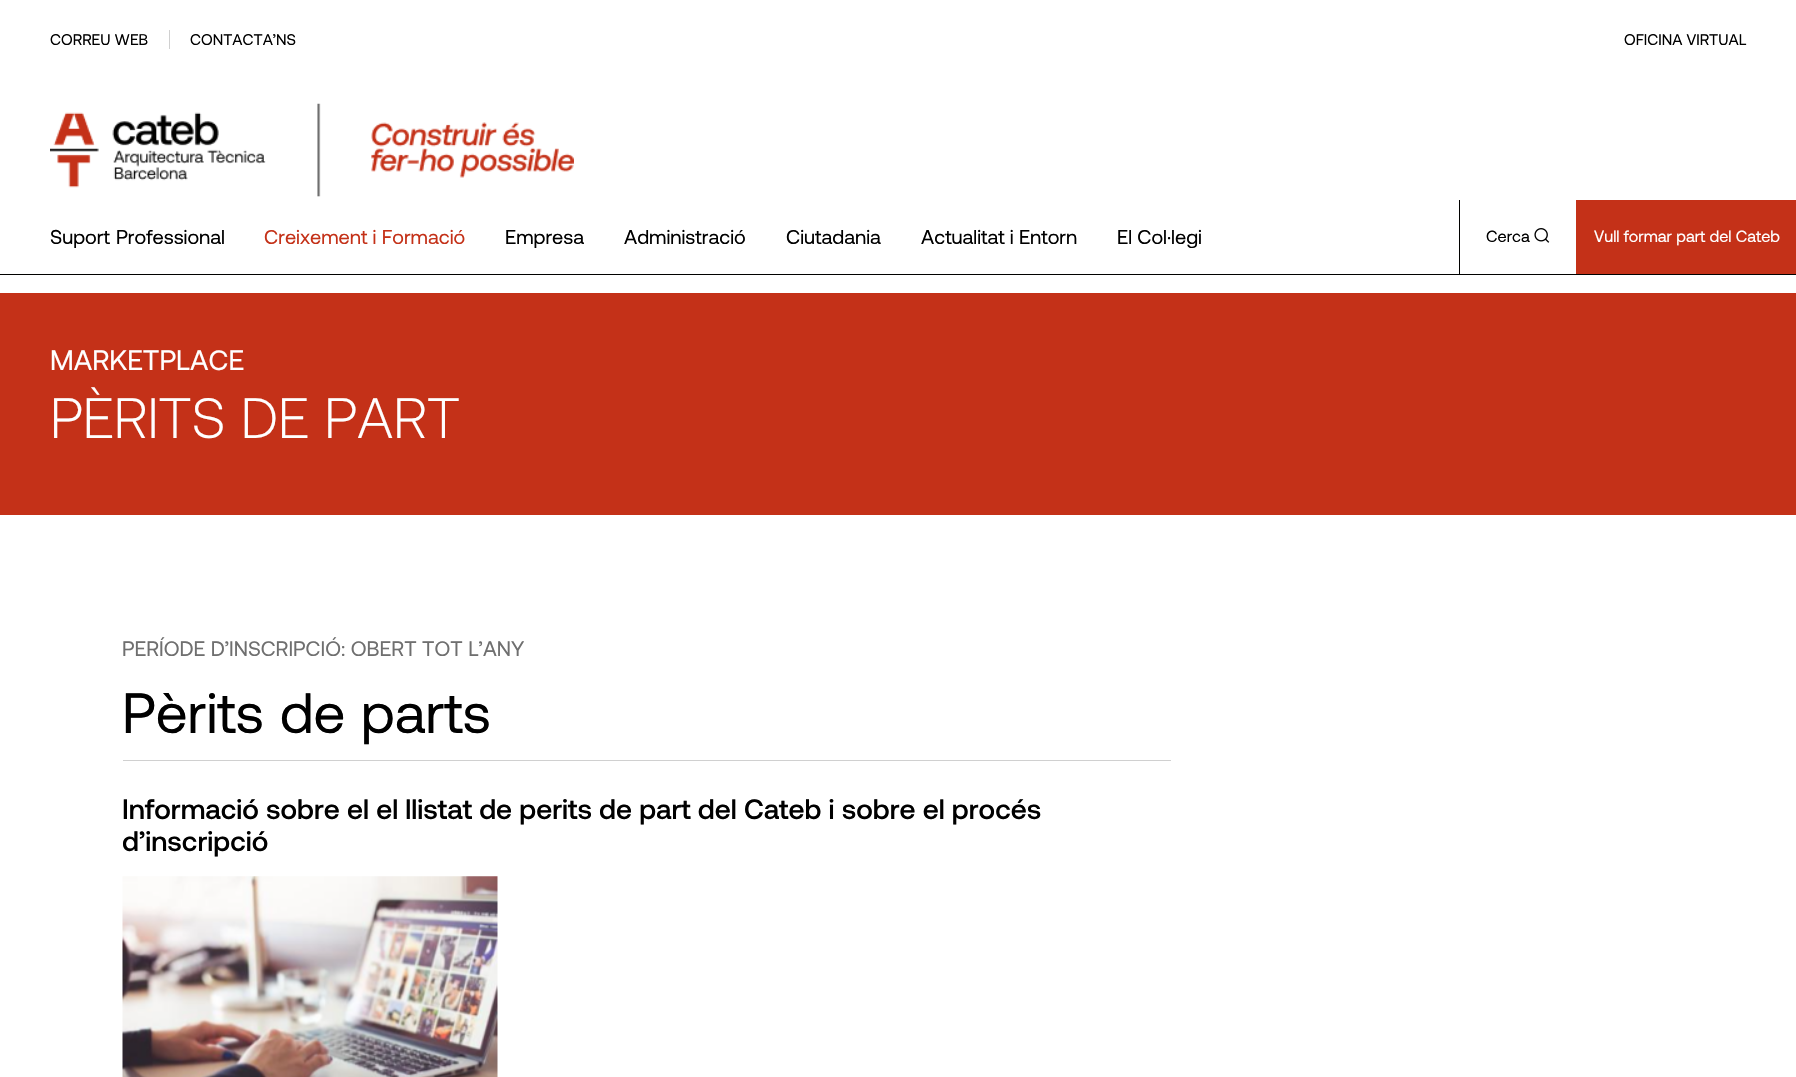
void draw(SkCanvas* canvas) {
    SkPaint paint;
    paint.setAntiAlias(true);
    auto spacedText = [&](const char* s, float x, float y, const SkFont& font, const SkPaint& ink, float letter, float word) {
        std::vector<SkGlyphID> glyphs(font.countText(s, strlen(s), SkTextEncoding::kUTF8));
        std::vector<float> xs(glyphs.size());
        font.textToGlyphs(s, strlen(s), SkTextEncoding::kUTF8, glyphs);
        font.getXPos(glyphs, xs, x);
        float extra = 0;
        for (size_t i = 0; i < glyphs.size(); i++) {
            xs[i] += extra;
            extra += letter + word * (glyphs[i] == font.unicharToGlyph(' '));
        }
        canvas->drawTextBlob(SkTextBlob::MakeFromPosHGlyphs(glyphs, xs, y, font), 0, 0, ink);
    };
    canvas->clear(0xFFFFFFFF);
    paint.setColor(0xFFD0D0D0);
    canvas->drawRect(SkRect::MakeXYWH(169, 30, 1, 19), paint);
    SkFont font1(fontMgr->matchFamilyStyle("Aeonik", SkFontStyle::Normal()), 15.5f);
    font1.setSubpixel(true);
    paint.setColor(0xFF000000);
    canvas->drawString("CORREU WEB", 50, 45, font1, paint);
    canvas->drawString("CONTACTA’NS", 190, 45, font1, paint);
    canvas->drawString("OFICINA VIRTUAL", 1624, 45, font1, paint);
    canvas->drawImageRect(SkImages::DeferredFromEncodedData(SkData::MakeFromFileName("img1.png")), SkRect::MakeXYWH(50, 103, 524, 94), SkSamplingOptions());
    paint.setColor(0xFF010100);
    canvas->drawRect(SkRect::MakeXYWH(0, 274, 1796, 1), paint);
    SkFont font2(fontMgr->matchFamilyStyle("Aeonik", SkFontStyle::Normal()), 20);
    font2.setSubpixel(true);
    paint.setColor(0xFF000000);
    spacedText("Suport Professional", 50, 244, font2, paint, 0, 1);
    paint.setColor(0xFFC43118);
    canvas->drawString("Creixement i Formació", 264, 244, font2, paint);
    paint.setColor(0xFF000000);
    canvas->drawString("Empresa", 505, 244, font2, paint);
    canvas->drawString("Administració", 624, 244, font2, paint);
    canvas->drawString("Ciutadania", 786, 244, font2, paint);
    canvas->drawString("Actualitat i Entorn", 921, 244, font2, paint);
    canvas->drawString("El Col·legi", 1117, 244, font2, paint);
    paint.setColor(0xFF010100);
    canvas->drawRect(SkRect::MakeXYWH(1459, 200, 1, 74), paint);
    SkFont font3(fontMgr->matchFamilyStyle("Aeonik", SkFontStyle::Normal()), 16.25f);
    font3.setSubpixel(true);
    paint.setColor(0xFF000000);
    canvas->drawString("Cerca", 1486, 242, font3, paint);
    canvas->drawImageRect(SkImages::DeferredFromEncodedData(SkData::MakeFromFileName("img2.png")), SkRect::MakeXYWH(1534, 228, 16, 15), SkSamplingOptions());
    paint.setColor(0xFFC43118);
    canvas->drawRect(SkRect::MakeXYWH(1576, 200, 220, 74), paint);
    paint.setColor(0xFFFFFFFF);
    canvas->drawString("Vull formar part del Cateb", 1594, 242, font3, paint);
    paint.setColor(0xFFC43118);
    canvas->drawRect(SkRect::MakeXYWH(0, 293, 1796, 222), paint);
    SkFont font4(fontMgr->matchFamilyStyle("Aeonik", SkFontStyle::Normal()), 28.05f);
    font4.setSubpixel(true);
    paint.setColor(0xFFFFFFFF);
    canvas->drawString("MARKETPLACE", 50, 370, font4, paint);
    SkFont font5(fontMgr->matchFamilyStyle("Aeonik", SkFontStyle(300, SkFontStyle::kNormal_Width, SkFontStyle::kUpright_Slant)), 56.75f);
    font5.setSubpixel(true);
    canvas->drawString("PÈRITS DE PART", 50, 438, font5, paint);
    SkFont font6(fontMgr->matchFamilyStyle("Aeonik", SkFontStyle::Normal()), 21);
    font6.setSubpixel(true);
    paint.setColor(0xFF6F6F6F);
    canvas->drawString("PERÍODE D’INSCRIPCIÓ: OBERT TOT L’ANY", 122, 656, font6, paint);
    paint.setColor(0xFFD0D0D0);
    canvas->drawRect(SkRect::MakeXYWH(123, 760, 1048, 1), paint);
    SkFont font7(fontMgr->matchFamilyStyle("Aeonik", SkFontStyle::Normal()), 56.75f);
    font7.setSubpixel(true);
    paint.setColor(0xFF000000);
    spacedText("Pèrits de parts", 122, 733, font7, paint, 0, 1);
    SkFont font8(fontMgr->matchFamilyStyle("Aeonik", SkFontStyle(500, SkFontStyle::kNormal_Width, SkFontStyle::kUpright_Slant)), 28.05f);
    font8.setSubpixel(true);
    canvas->drawString("Informació sobre el el llistat de perits de part del Cateb i sobre el procés", 122, 819, font8, paint);
    canvas->drawString("d’inscripció", 122, 851, font8, paint);
    canvas->drawImageRect(SkImages::DeferredFromEncodedData(SkData::MakeFromFileName("img3.png")), SkRect::MakeXYWH(122, 876, 376, 201), SkSamplingOptions());
}
